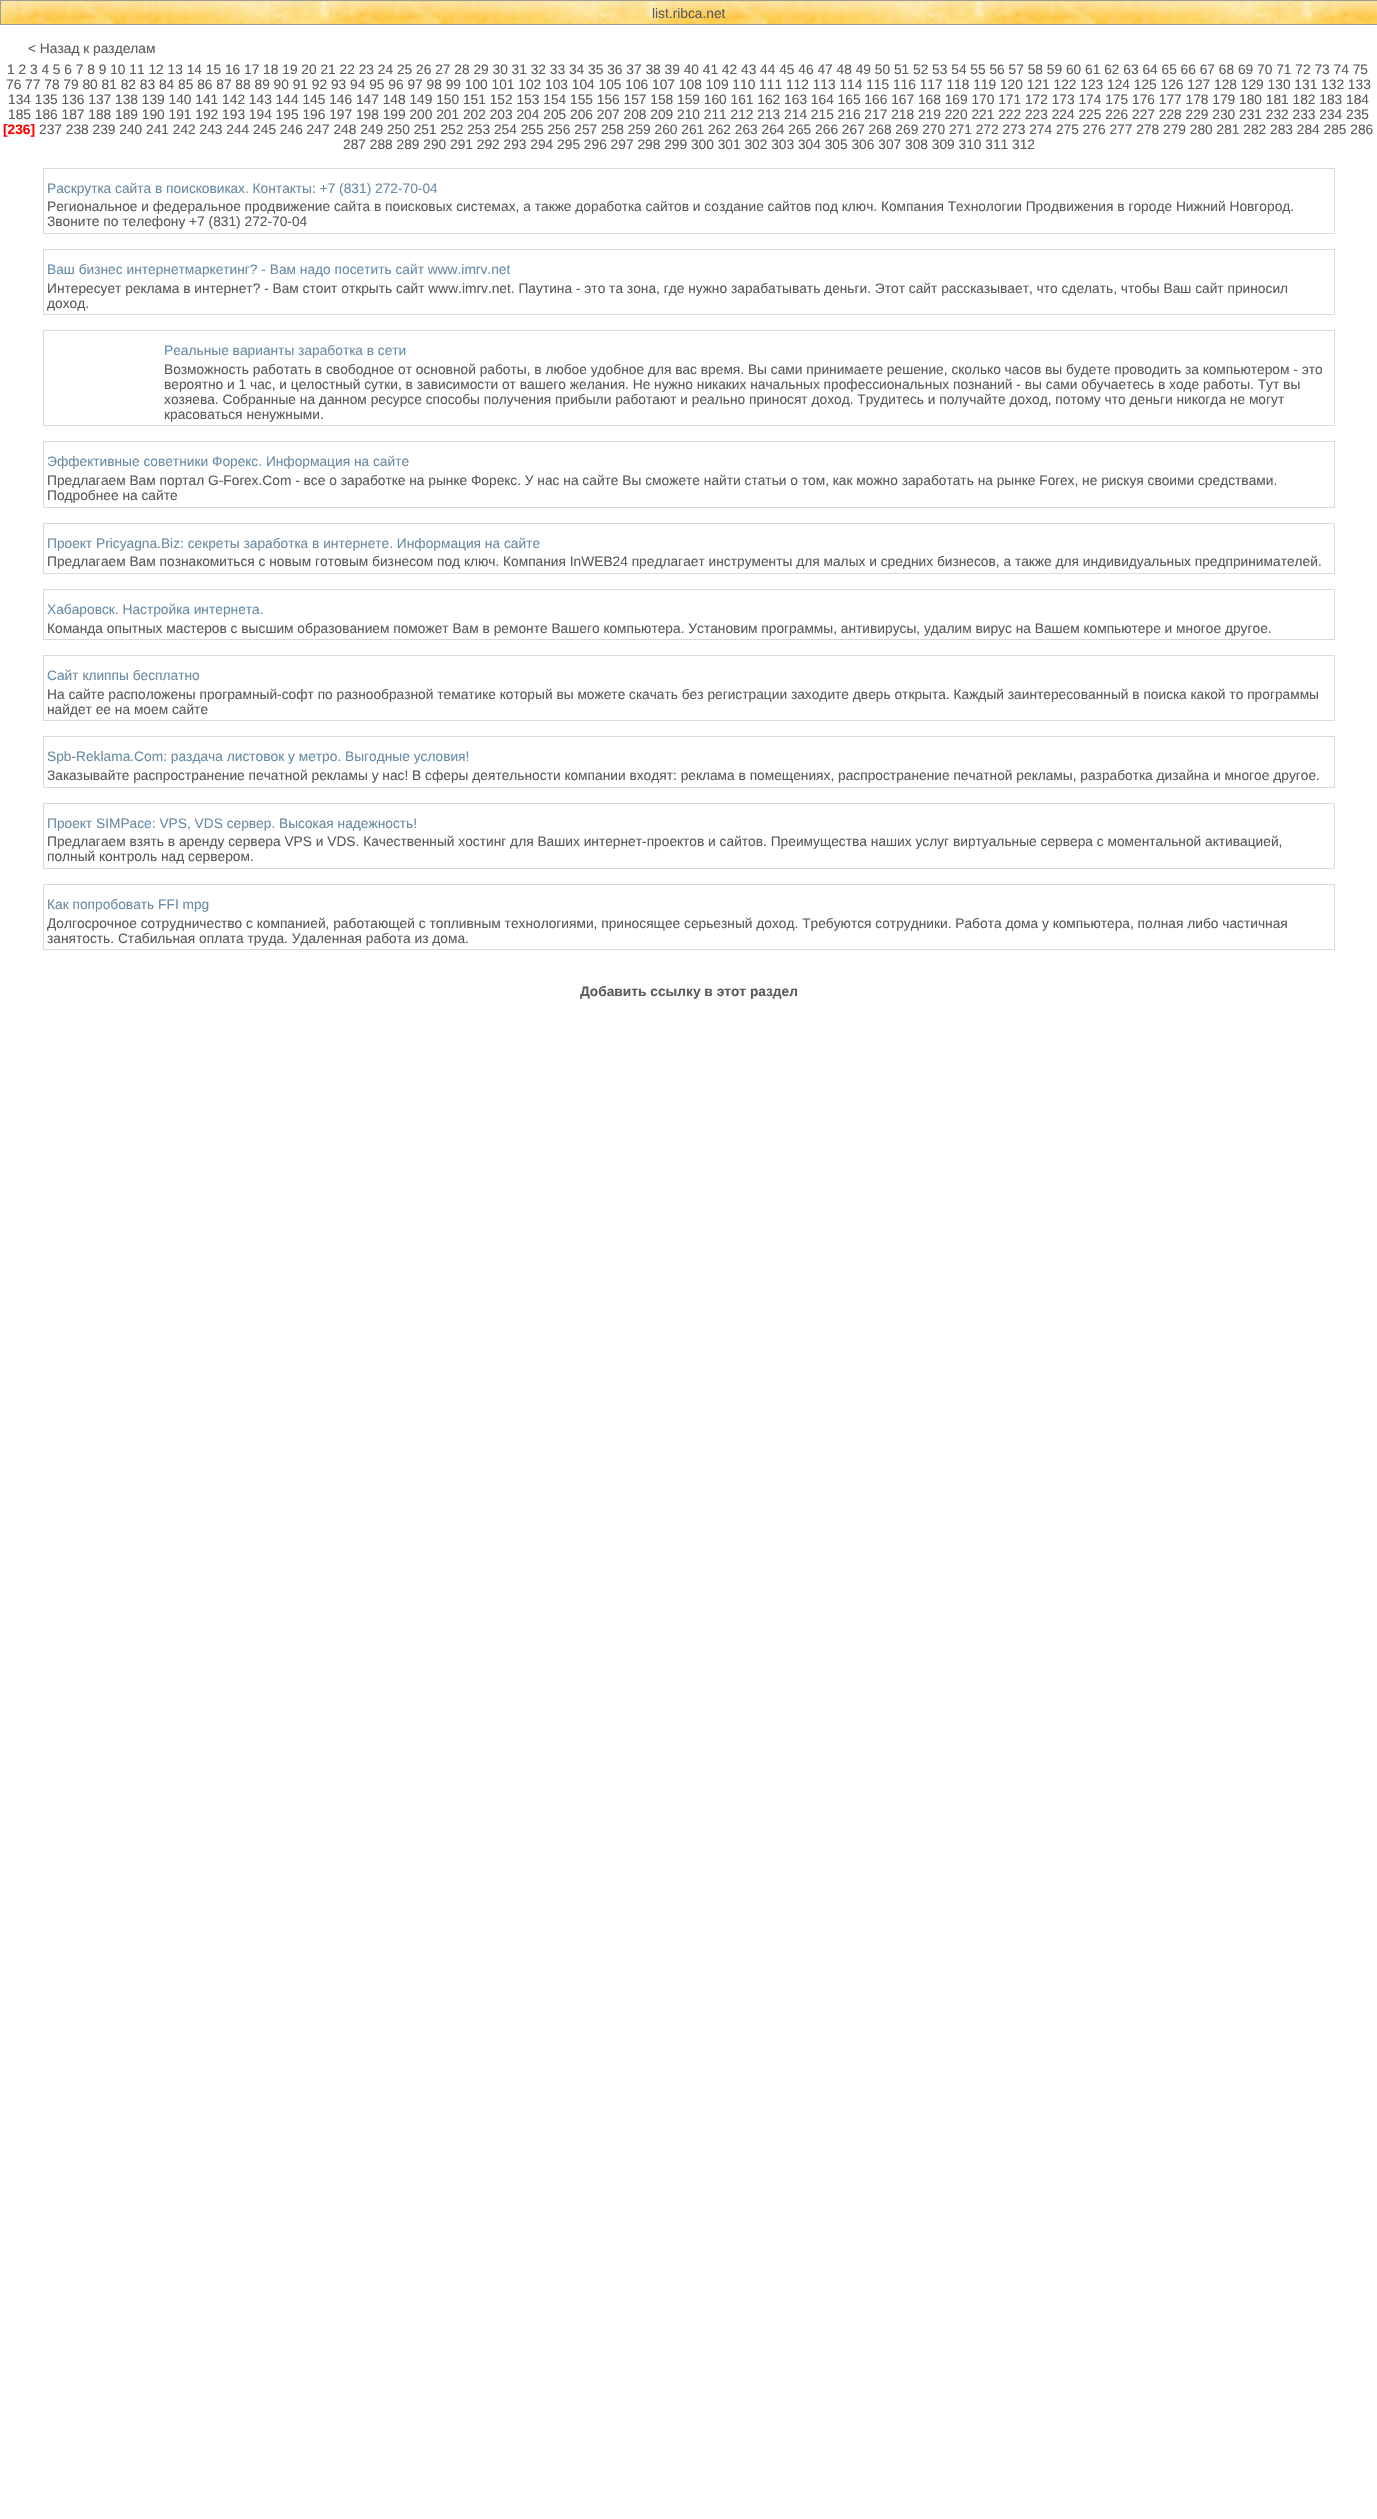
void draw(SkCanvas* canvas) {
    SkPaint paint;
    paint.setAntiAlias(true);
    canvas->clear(0xFFFFFFFF);
    canvas->drawImageRect(SkImages::DeferredFromEncodedData(SkData::MakeFromFileName("img1.png")), SkRect::MakeXYWH(1, 1, 1376, 23), SkSamplingOptions());
    paint.setStyle(SkPaint::kStroke_Style);
    paint.setStrokeWidth(1);
    paint.setColor(0xFF9C9C9C);
    canvas->drawRect(SkRect::MakeXYWH(0.5f, 0.5f, 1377, 24), paint);
    SkFont font1(fontMgr->matchFamilyStyle("Liberation Sans", SkFontStyle::Normal()), 13.75f);
    font1.setSubpixel(true);
    paint.setStyle(SkPaint::kFill_Style);
    paint.setColor(0xFF5B5B5B);
    canvas->drawString("list.ribca.net", 652, 18, font1, paint);
    canvas->drawString("< Назад к разделам", 28, 53, font1, paint);
    canvas->drawString("1 2 3 4 5 6 7 8 9 10 11 12 13 14 15 16 17 18 19 20 21 22 23 24 25 26 27 28 29 30 31 32 33 34 35 36 37 38 39 40 41 42 43 44 45 46 47 48 49 50 51 52 53 54 55 56 57 58 59 60 61 62 63 64 65 66 67 68 69 70 71 72 73 74 75", 7, 74, font1, paint);
    canvas->drawString("76 77 78 79 80 81 82 83 84 85 86 87 88 89 90 91 92 93 94 95 96 97 98 99 100 101 102 103 104 105 106 107 108 109 110 111 112 113 114 115 116 117 118 119 120 121 122 123 124 125 126 127 128 129 130 131 132 133", 6, 89, font1, paint);
    canvas->drawString("134 135 136 137 138 139 140 141 142 143 144 145 146 147 148 149 150 151 152 153 154 155 156 157 158 159 160 161 162 163 164 165 166 167 168 169 170 171 172 173 174 175 176 177 178 179 180 181 182 183 184", 8, 104, font1, paint);
    canvas->drawString("185 186 187 188 189 190 191 192 193 194 195 196 197 198 199 200 201 202 203 204 205 206 207 208 209 210 211 212 213 214 215 216 217 218 219 220 221 222 223 224 225 226 227 228 229 230 231 232 233 234 235", 8, 119, font1, paint);
    SkFont font2(fontMgr->matchFamilyStyle("Liberation Sans", SkFontStyle::Bold()), 13.75f);
    font2.setSubpixel(true);
    paint.setColor(0xFFFF0000);
    canvas->drawString("[236]", 3, 134, font2, paint);
    paint.setColor(0xFF5B5B5B);
    canvas->drawString("237 238 239 240 241 242 243 244 245 246 247 248 249 250 251 252 253 254 255 256 257 258 259 260 261 262 263 264 265 266 267 268 269 270 271 272 273 274 275 276 277 278 279 280 281 282 283 284 285 286", 39, 134, font1, paint);
    canvas->drawString("287 288 289 290 291 292 293 294 295 296 297 298 299 300 301 302 303 304 305 306 307 308 309 310 311 312", 343, 149, font1, paint);
    paint.setStyle(SkPaint::kStroke_Style);
    paint.setColor(0xFFDADADA);
    canvas->drawRect(SkRect::MakeXYWH(43.5f, 168.5f, 1291, 65), paint);
    paint.setStyle(SkPaint::kFill_Style);
    paint.setColor(0xFF698CA5);
    canvas->drawString("Раскрутка сайта в поисковиках. Контакты: +7 (831) 272-70-04", 47, 193, font1, paint);
    paint.setColor(0xFF5B5B5B);
    canvas->drawString("Региональное и федеральное продвижение сайта в поисковых системах, а также доработка сайтов и создание сайтов под ключ. Компания Технологии Продвижения в городе Нижний Новгород.", 47, 211, font1, paint);
    canvas->drawString("Звоните по телефону +7 (831) 272-70-04", 47, 226, font1, paint);
    paint.setStyle(SkPaint::kStroke_Style);
    paint.setColor(0xFFDADADA);
    canvas->drawRect(SkRect::MakeXYWH(43.5f, 249.5f, 1291, 65), paint);
    paint.setStyle(SkPaint::kFill_Style);
    paint.setColor(0xFF698CA5);
    canvas->drawString("Ваш бизнес интернетмаркетинг? - Вам надо посетить сайт www.imrv.net", 47, 274, font1, paint);
    paint.setColor(0xFF5B5B5B);
    canvas->drawString("Интересует реклама в интернет? - Вам стоит открыть сайт www.imrv.net. Паутина - это та зона, где нужно зарабатывать деньги. Этот сайт рассказывает, что сделать, чтобы Ваш сайт приносил", 47, 293, font1, paint);
    canvas->drawString("доход.", 47, 308, font1, paint);
    paint.setStyle(SkPaint::kStroke_Style);
    paint.setColor(0xFFDADADA);
    canvas->drawRect(SkRect::MakeXYWH(43.5f, 330.5f, 1291, 95), paint);
    paint.setStyle(SkPaint::kFill_Style);
    paint.setColor(0xFF698CA5);
    canvas->drawString("Реальные варианты заработка в сети", 164, 355, font1, paint);
    paint.setColor(0xFF5B5B5B);
    canvas->drawString("Возможность работать в свободное от основной работы, в любое удобное для вас время. Вы сами принимаете решение, сколько часов вы будете проводить за компьютером - это", 164, 374, font1, paint);
    canvas->drawString("вероятно и 1 час, и целостный сутки, в зависимости от вашего желания. Не нужно никаких начальных профессиональных познаний - вы сами обучаетесь в ходе работы. Тут вы", 164, 389, font1, paint);
    canvas->drawString("хозяева. Собранные на данном ресурсе способы получения прибыли работают и реально приносят доход. Трудитесь и получайте доход, потому что деньги никогда не могут", 164, 404, font1, paint);
    canvas->drawString("красоваться ненужными.", 164, 419, font1, paint);
    paint.setStyle(SkPaint::kStroke_Style);
    paint.setColor(0xFFDADADA);
    canvas->drawRect(SkRect::MakeXYWH(43.5f, 441.5f, 1291, 66), paint);
    paint.setStyle(SkPaint::kFill_Style);
    paint.setColor(0xFF698CA5);
    canvas->drawString("Эффективные советники Форекс. Информация на сайте", 47, 466, font1, paint);
    paint.setColor(0xFF5B5B5B);
    canvas->drawString("Предлагаем Вам портал G-Forex.Com - все о заработке на рынке Форекс. У нас на сайте Вы сможете найти статьи о том, как можно заработать на рынке Forex, не рискуя своими средствами.", 47, 485, font1, paint);
    canvas->drawString("Подробнее на сайте", 47, 500, font1, paint);
    paint.setStyle(SkPaint::kStroke_Style);
    paint.setColor(0xFFDADADA);
    canvas->drawRect(SkRect::MakeXYWH(43.5f, 523.5f, 1291, 50), paint);
    paint.setStyle(SkPaint::kFill_Style);
    paint.setColor(0xFF698CA5);
    canvas->drawString("Проект Pricyagna.Biz: секреты заработка в интернете. Информация на сайте", 47, 548, font1, paint);
    paint.setColor(0xFF5B5B5B);
    canvas->drawString("Предлагаем Вам познакомиться с новым готовым бизнесом под ключ. Компания InWEB24 предлагает инструменты для малых и средних бизнесов, а также для индивидуальных предпринимателей.", 47, 566, font1, paint);
    paint.setStyle(SkPaint::kStroke_Style);
    paint.setColor(0xFFDADADA);
    canvas->drawRect(SkRect::MakeXYWH(43.5f, 589.5f, 1291, 50), paint);
    paint.setStyle(SkPaint::kFill_Style);
    paint.setColor(0xFF698CA5);
    canvas->drawString("Хабаровск. Настройка интернета.", 47, 614, font1, paint);
    paint.setColor(0xFF5B5B5B);
    canvas->drawString("Команда опытных мастеров с высшим образованием поможет Вам в ремонте Вашего компьютера. Установим программы, антивирусы, удалим вирус на Вашем компьютере и многое другое.", 47, 633, font1, paint);
    paint.setStyle(SkPaint::kStroke_Style);
    paint.setColor(0xFFDADADA);
    canvas->drawRect(SkRect::MakeXYWH(43.5f, 655.5f, 1291, 65), paint);
    paint.setStyle(SkPaint::kFill_Style);
    paint.setColor(0xFF698CA5);
    canvas->drawString("Сайт клиппы бесплатно", 47, 680, font1, paint);
    paint.setColor(0xFF5B5B5B);
    canvas->drawString("На сайте расположены програмный-софт по разнообразной тематике который вы можете скачать без регистрации заходите дверь открыта. Каждый заинтересованный в поиска какой то программы", 47, 699, font1, paint);
    canvas->drawString("найдет ее на моем сайте", 47, 714, font1, paint);
    paint.setStyle(SkPaint::kStroke_Style);
    paint.setColor(0xFFDADADA);
    canvas->drawRect(SkRect::MakeXYWH(43.5f, 736.5f, 1291, 51), paint);
    paint.setStyle(SkPaint::kFill_Style);
    paint.setColor(0xFF698CA5);
    canvas->drawString("Spb-Reklama.Com: раздача листовок у метро. Выгодные условия!", 47, 761, font1, paint);
    paint.setColor(0xFF5B5B5B);
    canvas->drawString("Заказывайте распространение печатной рекламы у нас! В сферы деятельности компании входят: реклама в помещениях, распространение печатной рекламы, разработка дизайна и многое другое.", 47, 780, font1, paint);
    paint.setStyle(SkPaint::kStroke_Style);
    paint.setColor(0xFFDADADA);
    canvas->drawRect(SkRect::MakeXYWH(43.5f, 803.5f, 1291, 65), paint);
    paint.setStyle(SkPaint::kFill_Style);
    paint.setColor(0xFF698CA5);
    canvas->drawString("Проект SIMPace: VPS, VDS сервер. Высокая надежность!", 47, 828, font1, paint);
    paint.setColor(0xFF5B5B5B);
    canvas->drawString("Предлагаем взять в аренду сервера VPS и VDS. Качественный хостинг для Ваших интернет-проектов и сайтов. Преимущества наших услуг виртуальные сервера с моментальной активацией,", 47, 846, font1, paint);
    canvas->drawString("полный контроль над сервером.", 47, 861, font1, paint);
    paint.setStyle(SkPaint::kStroke_Style);
    paint.setColor(0xFFDADADA);
    canvas->drawRect(SkRect::MakeXYWH(43.5f, 884.5f, 1291, 65), paint);
    paint.setStyle(SkPaint::kFill_Style);
    paint.setColor(0xFF698CA5);
    canvas->drawString("Как попробовать FFI mpg", 47, 909, font1, paint);
    paint.setColor(0xFF5B5B5B);
    canvas->drawString("Долгосрочное сотрудничество с компанией, работающей с топливным технологиями, приносящее серьезный доход. Требуются сотрудники. Работа дома у компьютера, полная либо частичная", 47, 928, font1, paint);
    canvas->drawString("занятость. Стабильная оплата труда. Удаленная работа из дома.", 47, 943, font1, paint);
    canvas->drawString("Добавить ссылку в этот раздел", 580, 996, font2, paint);
}
